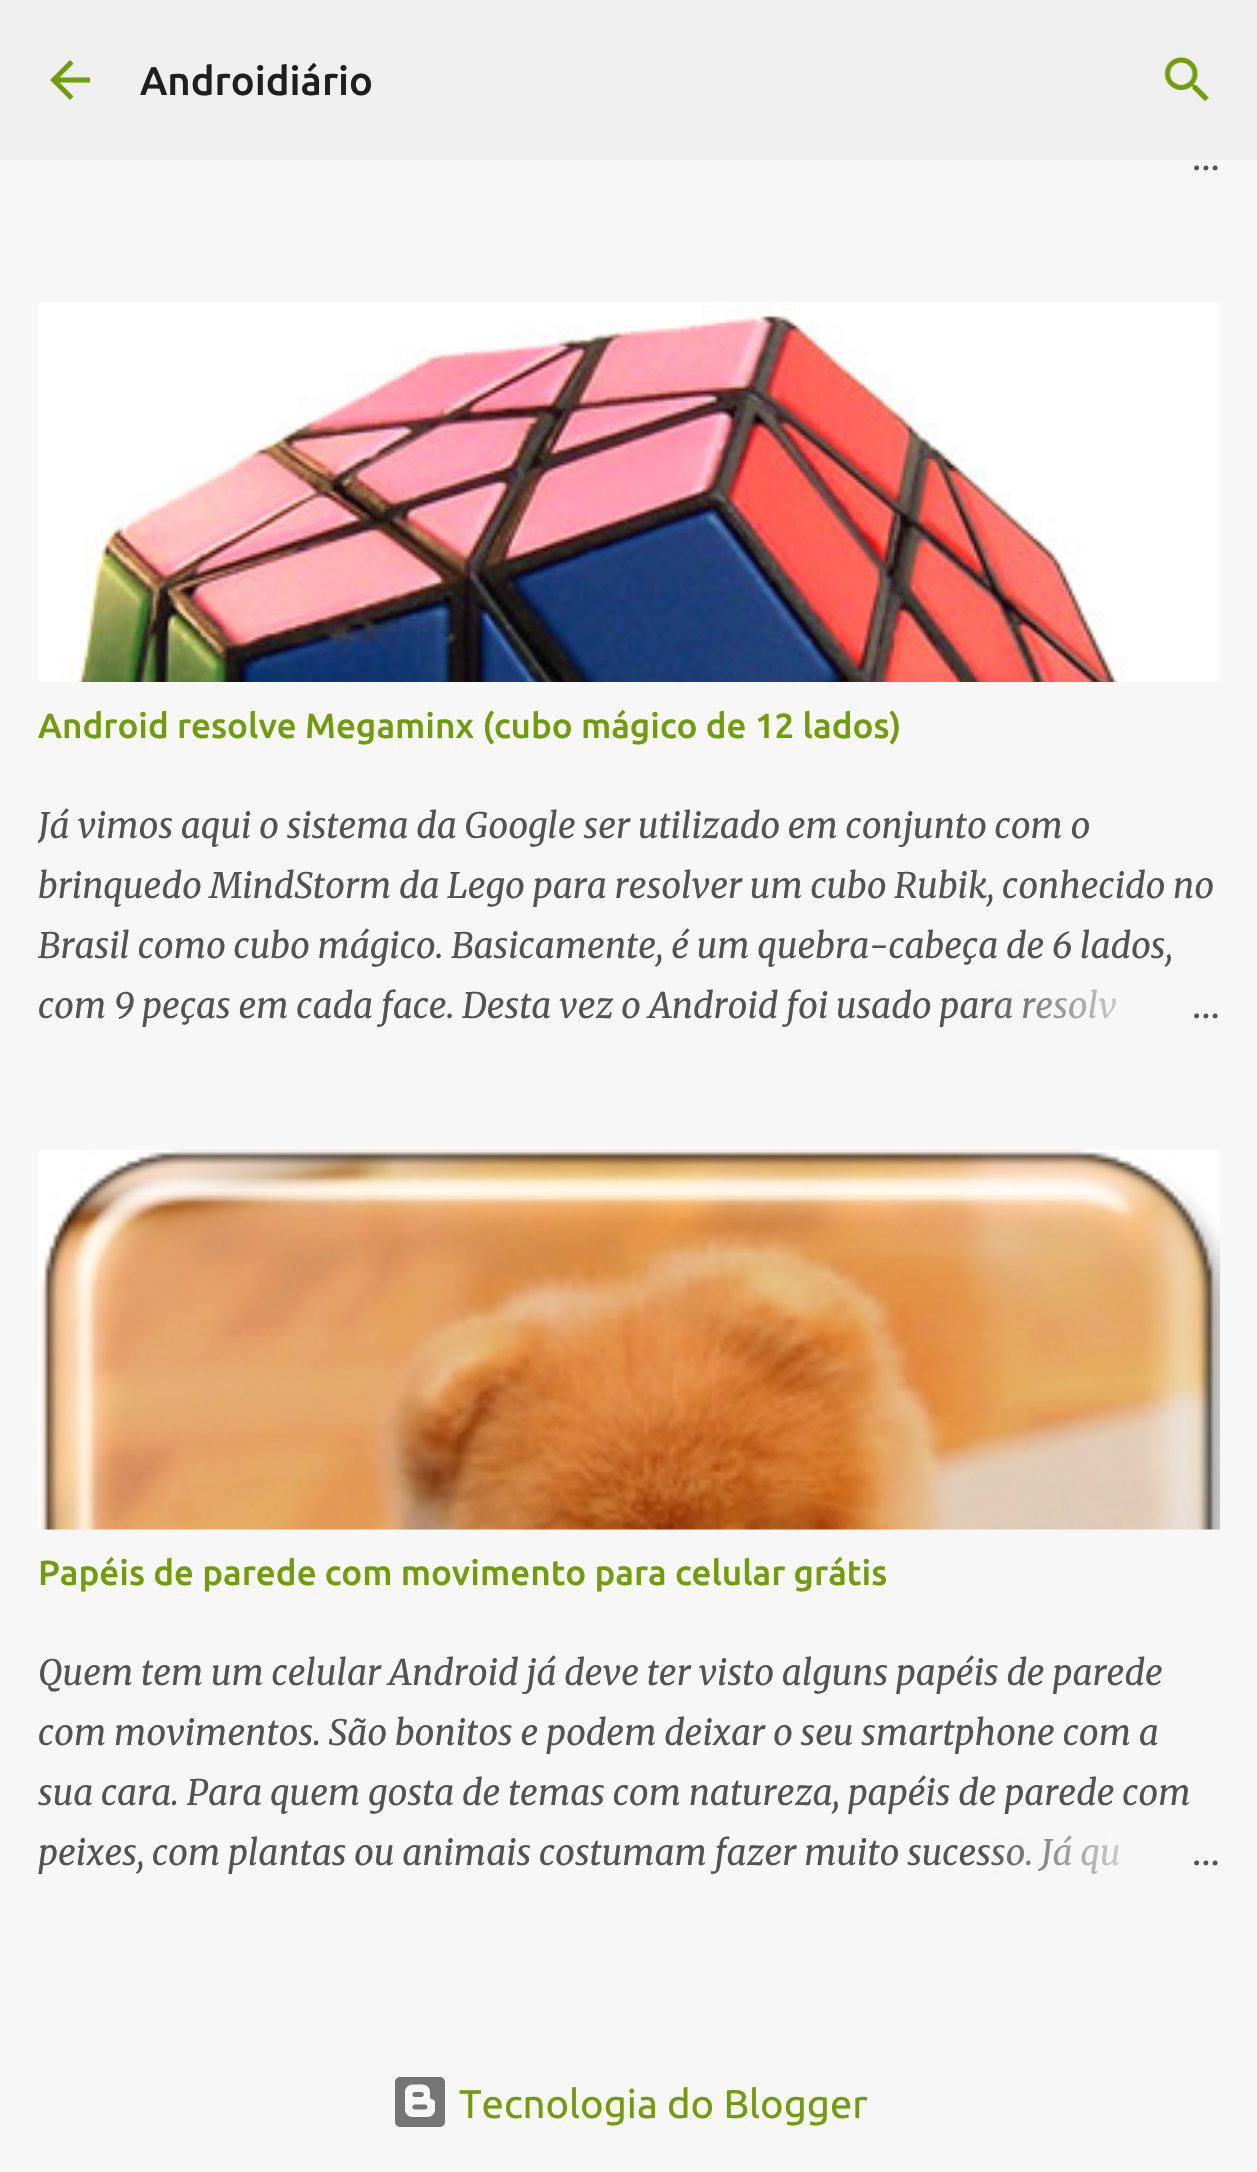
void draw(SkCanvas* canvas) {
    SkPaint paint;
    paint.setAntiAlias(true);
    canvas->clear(0xFFF7F7F7);
    paint.setColor(0xFFEFEFEF);
    canvas->drawRect(SkRect::MakeXYWH(0, 0, 1257, 160), paint);
    canvas->drawImageRect(SkImages::DeferredFromEncodedData(SkData::MakeFromFileName("img1.png")), SkRect::MakeXYWH(50, 60, 40, 40), SkSamplingOptions());
    SkFont font1(fontMgr->matchFamilyStyle("Ubuntu", SkFontStyle(500, SkFontStyle::kNormal_Width, SkFontStyle::kUpright_Slant)), 40);
    font1.setSubpixel(true);
    paint.setColor(0xFF1F1F1F);
    canvas->drawString("Androidiário", 140, 95, font1, paint);
    canvas->drawImageRect(SkImages::DeferredFromEncodedData(SkData::MakeFromFileName("img2.png")), SkRect::MakeXYWH(1164, 57, 45, 45), SkSamplingOptions());
    SkFont font2(fontMgr->matchFamilyStyle("Merriweather", SkFontStyle(300, SkFontStyle::kNormal_Width, SkFontStyle::kUpright_Slant)), 35);
    font2.setSubpixel(true);
    paint.setColor(0xFF535353);
    canvas->drawString("…", 1192, 170, font2, paint);
    canvas->drawImageRect(SkImages::DeferredFromEncodedData(SkData::MakeFromFileName("img3.png")), SkRect::MakeXYWH(38, 302, 1182, 380), SkSamplingOptions());
    SkFont font3(fontMgr->matchFamilyStyle("Ubuntu", SkFontStyle(500, SkFontStyle::kNormal_Width, SkFontStyle::kUpright_Slant)), 35);
    font3.setSubpixel(true);
    paint.setColor(0xFF729C0B);
    canvas->drawString("Android resolve Megaminx (cubo mágico de 12 lados)", 38, 738, font3, paint);
    canvas->save();
    canvas->clipRect(SkRect::MakeXYWH(38, 795, 1182, 240));
    SkFont font4(fontMgr->matchFamilyStyle("Merriweather", SkFontStyle::Italic()), 35);
    font4.setSubpixel(true);
    paint.setColor(0xFF535353);
    canvas->drawString("Já vimos aqui o sistema da Google ser utilizado em conjunto com o", 38, 838, font4, paint);
    canvas->restore();
    canvas->drawString("brinquedo MindStorm da Lego para resolver um cubo Rubik, conhecido no", 38, 898, font4, paint);
    canvas->drawString("Brasil como cubo mágico. Basicamente, é um quebra-cabeça de 6 lados,", 38, 958, font4, paint);
    canvas->drawString("com 9 peças em cada face. Desta vez o Android foi usado para resolv", 38, 1018, font4, paint);
    {
        const SkColor colors[] = {0xFFF7F7F7, 0xFFF7F7F7, 0x00F7F7F7};
        const float stops[] = {0, 0.2f, 1};
        const SkPoint ends[] = {{1220, 1005}, {980, 1005}};
        paint.setShader(SkGradientShader::MakeLinear(ends, colors, stops, 3, SkTileMode::kClamp));
        paint.setAlpha(255);
    }
    canvas->drawRect(SkRect::MakeXYWH(984, 989, 132, 30), paint);
    paint.setShader(nullptr);
    paint.setColor(0xFF535353);
    canvas->drawString("…", 1192, 1018, font2, paint);
    canvas->drawImageRect(SkImages::DeferredFromEncodedData(SkData::MakeFromFileName("img4.png")), SkRect::MakeXYWH(38, 1149, 1182, 381), SkSamplingOptions());
    paint.setColor(0xFF729C0B);
    canvas->drawString("Papéis de parede com movimento para celular grátis", 38, 1585, font3, paint);
    paint.setColor(0xFF535353);
    canvas->drawString("Quem tem um celular Android já deve ter visto alguns papéis de parede", 38, 1685, font4, paint);
    canvas->drawString("com movimentos. São bonitos e podem deixar o seu smartphone com a", 38, 1745, font4, paint);
    canvas->drawString("sua cara. Para quem gosta de temas com natureza, papéis de parede com", 38, 1805, font4, paint);
    canvas->drawString("peixes, com plantas ou animais costumam fazer muito sucesso. Já qu", 38, 1865, font4, paint);
    {
        const SkColor colors[] = {0xFFF7F7F7, 0xFFF7F7F7, 0x00F7F7F7};
        const float stops[] = {0, 0.2f, 1};
        const SkPoint ends[] = {{1220, 1853}, {980, 1853}};
        paint.setShader(SkGradientShader::MakeLinear(ends, colors, stops, 3, SkTileMode::kClamp));
        paint.setAlpha(255);
    }
    canvas->drawRect(SkRect::MakeXYWH(984, 1835, 135, 39), paint);
    paint.setShader(nullptr);
    paint.setColor(0xFF535353);
    canvas->drawString("…", 1192, 1865, font2, paint);
    canvas->drawImageRect(SkImages::DeferredFromEncodedData(SkData::MakeFromFileName("img5.png")), SkRect::MakeXYWH(395, 2077, 50, 50), SkSamplingOptions());
    SkFont font5(fontMgr->matchFamilyStyle("Ubuntu", SkFontStyle::Normal()), 40);
    font5.setSubpixel(true);
    paint.setColor(0xFF729C0B);
    canvas->drawString("Tecnologia do Blogger", 459, 2118, font5, paint);
}
